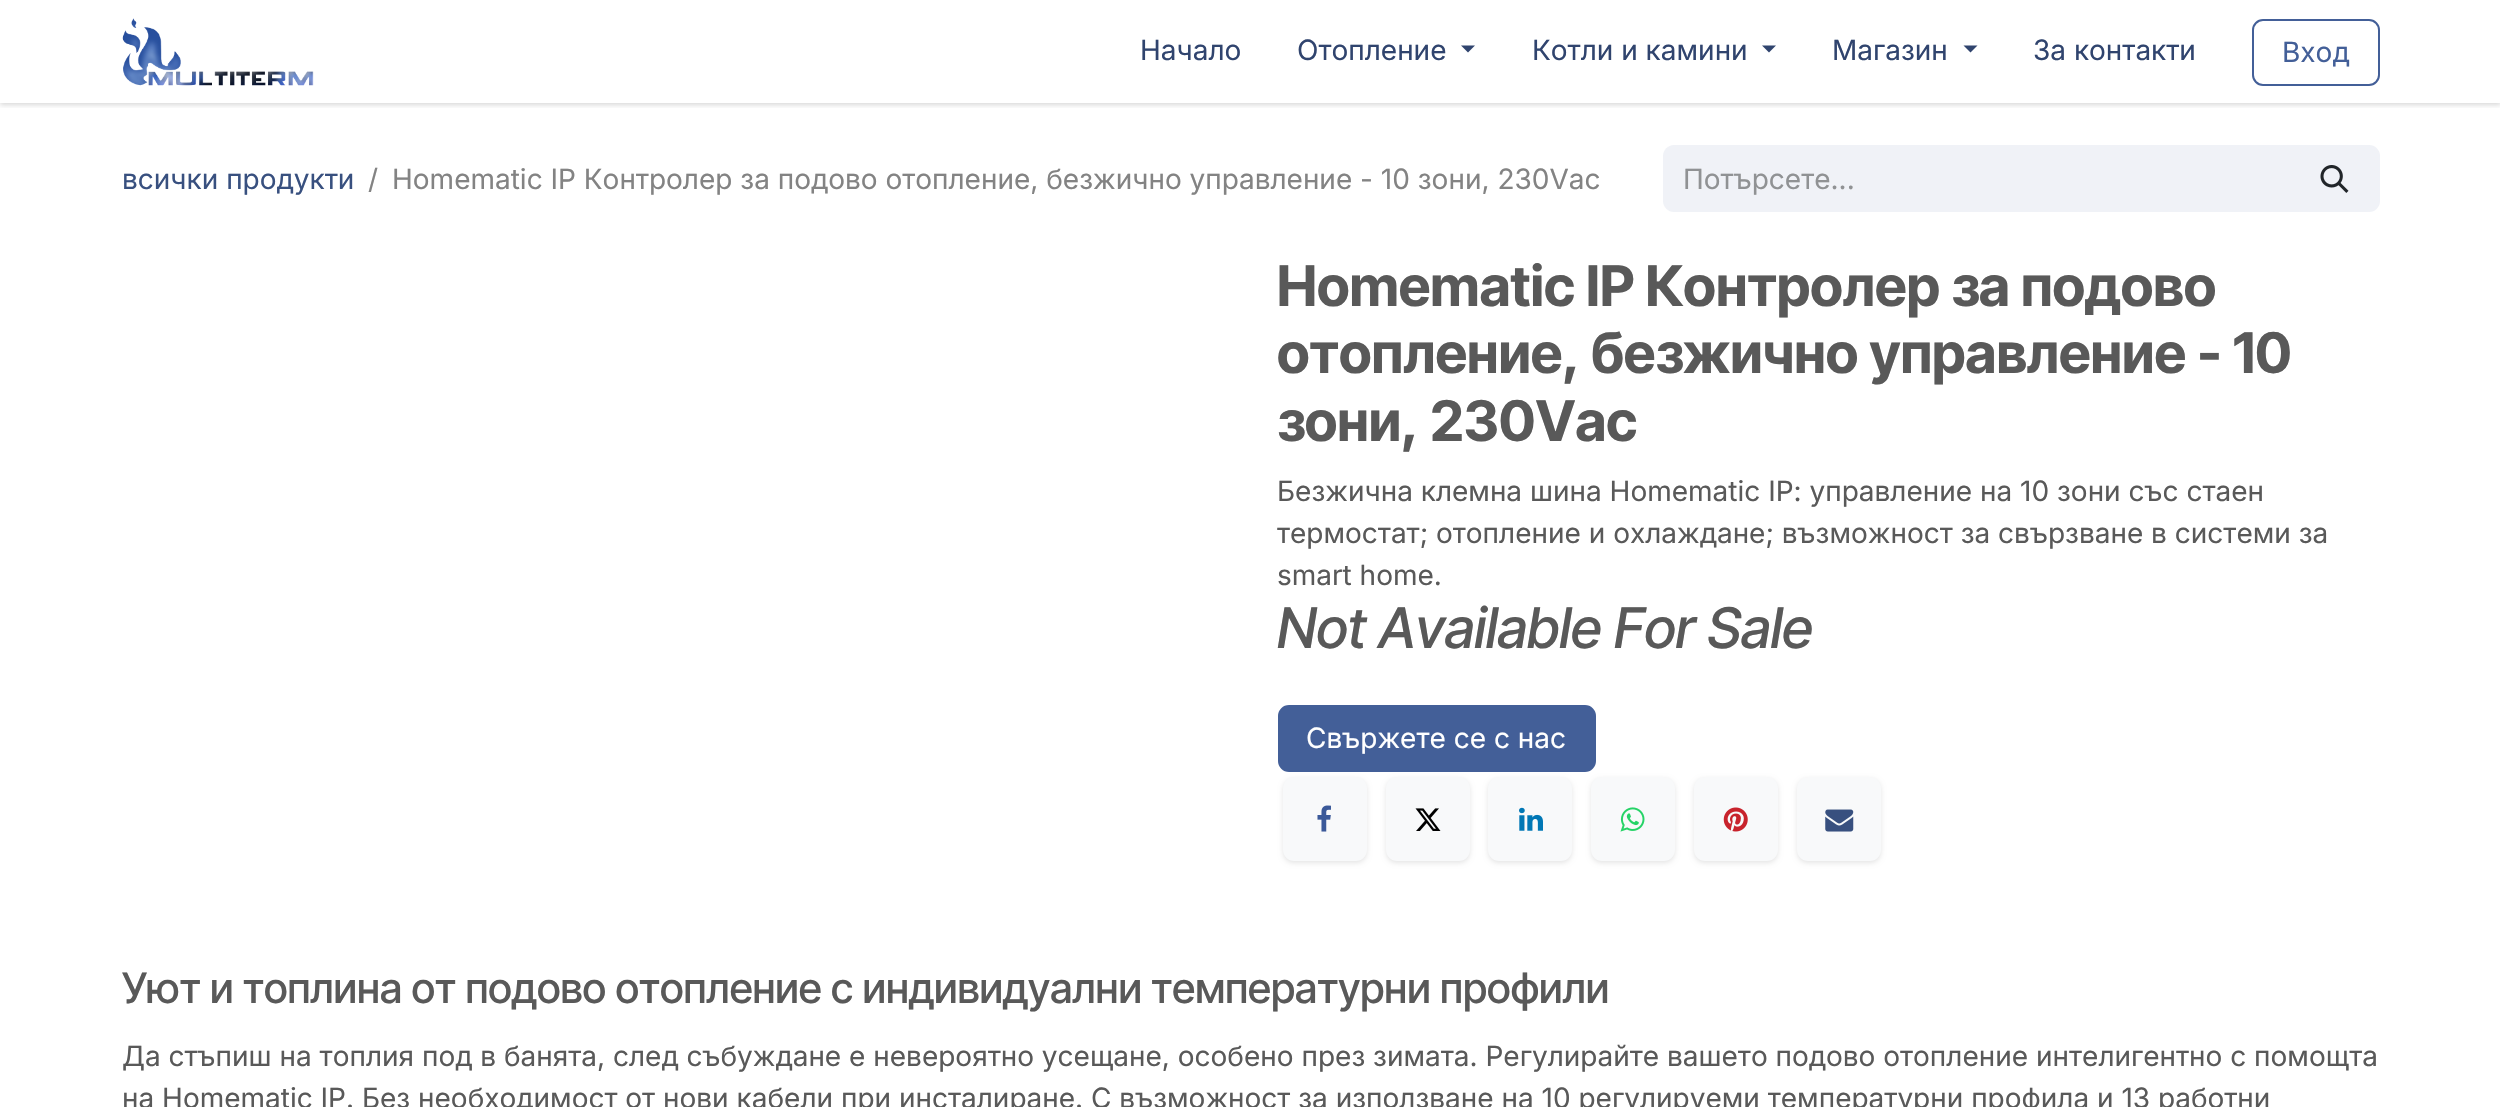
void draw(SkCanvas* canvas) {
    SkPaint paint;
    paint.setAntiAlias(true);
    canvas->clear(0xFFFFFFFF);
    canvas->save();
    canvas->clipRect(SkRect::MakeXYWH(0, 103, 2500, 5));
    paint.setColor(0x26000000);
    paint.setMaskFilter(SkMaskFilter::MakeBlur(kNormal_SkBlurStyle, 2.5f));
    canvas->drawRect(SkRect::MakeXYWH(0, 2, 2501, 103), paint);
    paint.setMaskFilter(nullptr);
    canvas->restore();
    canvas->drawImageRect(SkImages::DeferredFromEncodedData(SkData::MakeFromFileName("img1.png")), SkRect::MakeXYWH(122, 18, 192, 68), SkSamplingOptions());
    SkFont font1(fontMgr->matchFamilyStyle("Inter", SkFontStyle::Normal()), 28);
    font1.setSubpixel(true);
    paint.setColor(0xFF30446E);
    canvas->drawString("Начало", 1140, 60, font1, paint);
    canvas->drawString("Отопление", 1297, 60, font1, paint);
    canvas->drawPath(SkPathBuilder().moveTo(1461, 45.5f).lineTo(1475, 45.5f).lineTo(1468, 52.5f).close().detach(), paint);
    canvas->drawString("Котли и камини", 1532, 60, font1, paint);
    canvas->drawPath(SkPathBuilder().moveTo(1762, 45.5f).lineTo(1776, 45.5f).lineTo(1769, 52.5f).close().detach(), paint);
    canvas->drawString("Магазин", 1832, 60, font1, paint);
    canvas->drawPath(SkPathBuilder().moveTo(1963.5f, 45.5f).lineTo(1977.5f, 45.5f).lineTo(1970.5f, 52.5f).close().detach(), paint);
    canvas->drawString("За контакти", 2033, 60, font1, paint);
    paint.setStyle(SkPaint::kStroke_Style);
    paint.setStrokeWidth(2);
    paint.setColor(0xFF435F98);
    canvas->drawRoundRect(SkRect::MakeXYWH(2253, 20, 126, 65), 10, 10, paint);
    paint.setStyle(SkPaint::kFill_Style);
    canvas->drawString("Вход", 2282, 62, font1, paint);
    paint.setColor(0xFF38507F);
    canvas->drawString("всички продукти", 122, 189, font1, paint);
    paint.setColor(0xFF838383);
    canvas->drawString("/", 368, 189, font1, paint);
    canvas->drawString("Homematic IP Контролер за подово отопление, безжично управление - 10 зони, 230Vac", 392, 189, font1, paint);
    paint.setColor(0xFFF0F2F7);
    canvas->drawPath(SkPathBuilder().moveTo(1674, 145).lineTo(2293, 145).lineTo(2293, 212).lineTo(1674, 212).cubicTo(1668, 212, 1663, 207, 1663, 201).lineTo(1663, 156).cubicTo(1663, 150, 1668, 145, 1674, 145).close().detach(), paint);
    paint.setColor(0xFF909294);
    canvas->drawString("Потърсете...", 1683, 189, font1, paint);
    paint.setColor(0xFFF0F2F7);
    canvas->drawPath(SkPathBuilder().moveTo(2292, 146).lineTo(2369, 146).cubicTo(2374.5f, 146, 2379, 150.5f, 2379, 156).lineTo(2379, 201).cubicTo(2379, 206.5f, 2374.5f, 211, 2369, 211).lineTo(2292, 211).close().detach(), paint);
    paint.setStyle(SkPaint::kStroke_Style);
    canvas->drawPath(SkPathBuilder().moveTo(2292, 146).lineTo(2369, 146).cubicTo(2374.5f, 146, 2379, 150.5f, 2379, 156).lineTo(2379, 201).cubicTo(2379, 206.5f, 2374.5f, 211, 2369, 211).lineTo(2292, 211).close().detach(), paint);
    canvas->drawImageRect(SkImages::DeferredFromEncodedData(SkData::MakeFromFileName("img2.png")), SkRect::MakeXYWH(2320, 165, 29, 28), SkSamplingOptions());
    SkFont font2(fontMgr->matchFamilyStyle("Inter Tight", SkFontStyle::Bold()), 56);
    font2.setSubpixel(true);
    paint.setStyle(SkPaint::kFill_Style);
    paint.setColor(0xFF595959);
    canvas->drawString("Homematic IP Контролер за подово", 1277, 306, font2, paint);
    canvas->drawString("отопление, безжично управление - 10", 1277, 373, font2, paint);
    canvas->drawString("зони, 230Vac", 1277, 441, font2, paint);
    canvas->drawString("Безжична клемна шина Homematic IP: управление на 10 зони със стаен", 1277, 501, font1, paint);
    canvas->drawString("термостат; отопление и охлаждане; възможност за свързване в системи за", 1277, 543, font1, paint);
    canvas->drawString("smart home.", 1277, 585, font1, paint);
    SkFont font3(fontMgr->matchFamilyStyle("Inter Tight", SkFontStyle(500, SkFontStyle::kNormal_Width, SkFontStyle::kItalic_Slant)), 56);
    font3.setSubpixel(true);
    canvas->drawString("Not Available For Sale", 1277, 648, font3, paint);
    paint.setColor(0x1A000000);
    paint.setMaskFilter(SkMaskFilter::MakeBlur(kNormal_SkBlurStyle, 2.5f));
    canvas->drawRoundRect(SkRect::MakeXYWH(1283, 779, 84, 84), 11, 11, paint);
    paint.setMaskFilter(nullptr);
    paint.setMaskFilter(SkMaskFilter::MakeBlur(kNormal_SkBlurStyle, 2.5f));
    canvas->drawRoundRect(SkRect::MakeXYWH(1386, 779, 84, 84), 11, 11, paint);
    paint.setMaskFilter(nullptr);
    paint.setMaskFilter(SkMaskFilter::MakeBlur(kNormal_SkBlurStyle, 2.5f));
    canvas->drawRoundRect(SkRect::MakeXYWH(1488, 779, 84, 84), 11, 11, paint);
    paint.setMaskFilter(nullptr);
    paint.setMaskFilter(SkMaskFilter::MakeBlur(kNormal_SkBlurStyle, 2.5f));
    canvas->drawRoundRect(SkRect::MakeXYWH(1591, 779, 84, 84), 11, 11, paint);
    paint.setMaskFilter(nullptr);
    paint.setColor(0xFF435F98);
    canvas->drawRoundRect(SkRect::MakeXYWH(1279, 706, 316, 65), 10, 10, paint);
    paint.setStyle(SkPaint::kStroke_Style);
    canvas->drawRoundRect(SkRect::MakeXYWH(1279, 706, 316, 65), 10, 10, paint);
    paint.setStyle(SkPaint::kFill_Style);
    paint.setColor(0xFFFFFFFF);
    canvas->drawString("Свържете се с нас", 1306, 748, font1, paint);
    paint.setColor(0xFFF8F9FA);
    canvas->drawRoundRect(SkRect::MakeXYWH(1283, 777, 84, 84), 11, 11, paint);
    canvas->drawImageRect(SkImages::DeferredFromEncodedData(SkData::MakeFromFileName("img3.png")), SkRect::MakeXYWH(1317, 805, 14, 27), SkSamplingOptions());
    canvas->drawRoundRect(SkRect::MakeXYWH(1386, 777, 84, 84), 11, 11, paint);
    canvas->drawImageRect(SkImages::DeferredFromEncodedData(SkData::MakeFromFileName("img4.png")), SkRect::MakeXYWH(1415, 808, 26, 23), SkSamplingOptions());
    canvas->drawRoundRect(SkRect::MakeXYWH(1488, 777, 84, 84), 11, 11, paint);
    canvas->drawImageRect(SkImages::DeferredFromEncodedData(SkData::MakeFromFileName("img5.png")), SkRect::MakeXYWH(1519, 807, 24, 24), SkSamplingOptions());
    canvas->drawRoundRect(SkRect::MakeXYWH(1591, 777, 84, 84), 11, 11, paint);
    canvas->drawImageRect(SkImages::DeferredFromEncodedData(SkData::MakeFromFileName("img6.png")), SkRect::MakeXYWH(1620, 807, 25, 25), SkSamplingOptions());
    paint.setColor(0x1A000000);
    paint.setMaskFilter(SkMaskFilter::MakeBlur(kNormal_SkBlurStyle, 2.5f));
    canvas->drawRoundRect(SkRect::MakeXYWH(1694, 779, 84, 84), 11, 11, paint);
    paint.setMaskFilter(nullptr);
    paint.setColor(0xFFF8F9FA);
    canvas->drawRoundRect(SkRect::MakeXYWH(1694, 777, 84, 84), 11, 11, paint);
    canvas->drawImageRect(SkImages::DeferredFromEncodedData(SkData::MakeFromFileName("img7.png")), SkRect::MakeXYWH(1723, 807, 25, 25), SkSamplingOptions());
    paint.setColor(0x1A000000);
    paint.setMaskFilter(SkMaskFilter::MakeBlur(kNormal_SkBlurStyle, 2.5f));
    canvas->drawRoundRect(SkRect::MakeXYWH(1797, 779, 84, 84), 11, 11, paint);
    paint.setMaskFilter(nullptr);
    paint.setColor(0xFFF8F9FA);
    canvas->drawRoundRect(SkRect::MakeXYWH(1797, 777, 84, 84), 11, 11, paint);
    canvas->drawImageRect(SkImages::DeferredFromEncodedData(SkData::MakeFromFileName("img8.png")), SkRect::MakeXYWH(1825, 809, 29, 23), SkSamplingOptions());
    SkFont font4(fontMgr->matchFamilyStyle("Inter Tight", SkFontStyle(500, SkFontStyle::kNormal_Width, SkFontStyle::kUpright_Slant)), 42);
    font4.setSubpixel(true);
    paint.setColor(0xFF595959);
    canvas->drawString("Уют и топлина от подово отопление с индивидуални температурни профили", 122, 1003, font4, paint);
    canvas->drawString("Да стъпиш на топлия под в банята, след събуждане е невероятно усещане, особено през зимата. Регулирайте вашето подово отопление интелигентно с помощта", 122, 1066, font1, paint);
    canvas->drawString("на Homematic IP. Без необходимост от нови кабели при инсталиране. С възможност за използване на 10 регулируеми температурни профила и 13 работни", 122, 1108, font1, paint);
}
